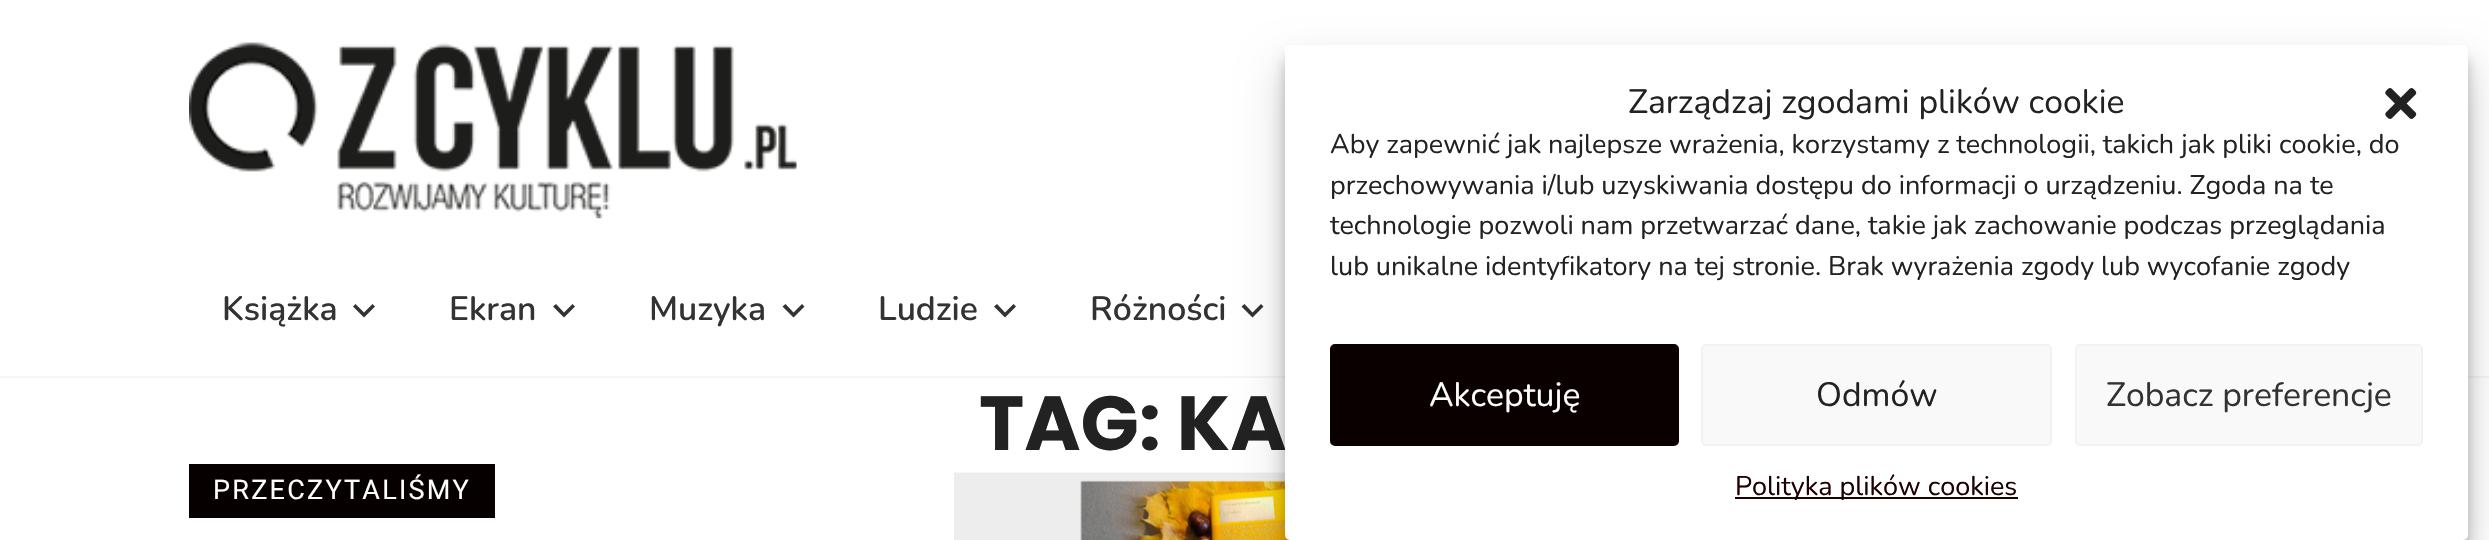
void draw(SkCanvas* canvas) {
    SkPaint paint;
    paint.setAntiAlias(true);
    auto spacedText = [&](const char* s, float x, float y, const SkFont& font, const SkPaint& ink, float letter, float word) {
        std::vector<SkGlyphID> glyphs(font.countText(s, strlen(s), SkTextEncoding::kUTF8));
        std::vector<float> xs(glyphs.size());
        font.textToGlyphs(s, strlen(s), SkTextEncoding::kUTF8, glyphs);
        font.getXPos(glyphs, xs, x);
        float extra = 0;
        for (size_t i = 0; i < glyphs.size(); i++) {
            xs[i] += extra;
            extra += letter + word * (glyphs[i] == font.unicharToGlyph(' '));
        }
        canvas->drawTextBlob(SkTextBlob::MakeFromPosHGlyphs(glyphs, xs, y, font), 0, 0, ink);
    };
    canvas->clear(0xFFFFFFFF);
    paint.setColor(0xFFF5F5F5);
    canvas->drawPath(SkPathBuilder().moveTo(0, 376).lineTo(0, 378).lineTo(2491, 378).lineTo(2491, 2).lineTo(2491, 376).close().detach(), paint);
    canvas->drawImageRect(SkImages::DeferredFromEncodedData(SkData::MakeFromFileName("img1.png")), SkRect::MakeXYWH(189, 42, 608, 177), SkSamplingOptions());
    SkFont font1(fontMgr->matchFamilyStyle("Nunito", SkFontStyle(600, SkFontStyle::kNormal_Width, SkFontStyle::kUpright_Slant)), 33.75f);
    font1.setSubpixel(true);
    paint.setColor(0xFF333333);
    canvas->drawString("Książka", 222, 320, font1, paint);
    canvas->drawPath(SkPathBuilder().moveTo(372.5f, 304).lineTo(375, 306.5f).lineTo(364, 317.5f).lineTo(353, 306.5f).lineTo(355.5f, 304).lineTo(364, 312.5f).close().detach(), paint);
    canvas->drawString("Ekran", 449, 320, font1, paint);
    canvas->drawPath(SkPathBuilder().moveTo(572.5f, 304).lineTo(575, 306.5f).lineTo(564, 317.5f).lineTo(553, 306.5f).lineTo(556, 304).lineTo(564, 312.5f).close().detach(), paint);
    canvas->drawString("Muzyka", 649, 320, font1, paint);
    canvas->drawPath(SkPathBuilder().moveTo(802, 304).lineTo(804.5f, 306.5f).lineTo(793.5f, 317.5f).lineTo(782.5f, 306.5f).lineTo(785.5f, 304).lineTo(793.5f, 312.5f).close().detach(), paint);
    canvas->drawString("Ludzie", 878, 320, font1, paint);
    canvas->drawPath(SkPathBuilder().moveTo(1013.5f, 304).lineTo(1016, 306.5f).lineTo(1005, 317.5f).lineTo(994, 306.5f).lineTo(997, 304).lineTo(1005, 312.5f).close().detach(), paint);
    canvas->drawString("Różności", 1090, 320, font1, paint);
    canvas->drawPath(SkPathBuilder().moveTo(1261, 304).lineTo(1263.5f, 306.5f).lineTo(1252.5f, 317.5f).lineTo(1241.5f, 306.5f).lineTo(1244.5f, 304).lineTo(1252.5f, 312.5f).close().detach(), paint);
    SkFont font2(fontMgr->matchFamilyStyle("Poppins", SkFontStyle::Bold()), 76.5f);
    font2.setSubpixel(true);
    paint.setColor(0xFF222222);
    canvas->drawString("TAG: KA", 979, 450, font2, paint);
    paint.setColor(0xFF070000);
    canvas->drawRect(SkRect::MakeXYWH(189, 464, 306, 54), paint);
    SkFont font3(fontMgr->matchFamilyStyle("Roboto", SkFontStyle::Normal()), 27);
    font3.setSubpixel(true);
    paint.setColor(0xFFFFFFFF);
    spacedText("PRZECZYTALIŚMY", 213, 499, font3, paint, 2.25f, 0);
    canvas->drawImageRect(SkImages::DeferredFromEncodedData(SkData::MakeFromFileName("img2.png")), SkRect::MakeXYWH(954, 472, 336, 68), SkSamplingOptions());
    paint.setColor(0x3B000000);
    paint.setMaskFilter(SkMaskFilter::MakeBlur(kNormal_SkBlurStyle, 7));
    canvas->drawRoundRect(SkRect::MakeXYWH(1285, 59, 1183, 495), 5, 5, paint);
    paint.setMaskFilter(nullptr);
    paint.setColor(0x30000000);
    paint.setMaskFilter(SkMaskFilter::MakeBlur(kNormal_SkBlurStyle, 22.5f));
    canvas->drawRoundRect(SkRect::MakeXYWH(1285, 68, 1183, 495), 5, 5, paint);
    paint.setMaskFilter(nullptr);
    paint.setColor(0xFFFFFFFF);
    canvas->drawRoundRect(SkRect::MakeXYWH(1285, 45, 1183, 495), 5, 5, paint);
    SkFont font4(fontMgr->matchFamilyStyle("Nunito", SkFontStyle::Normal()), 33.75f);
    font4.setSubpixel(true);
    paint.setColor(0xFF222222);
    canvas->drawString("Zarządzaj zgodami plików cookie", 1628, 113, font4, paint);
    canvas->drawImageRect(SkImages::DeferredFromEncodedData(SkData::MakeFromFileName("img3.png")), SkRect::MakeXYWH(2385, 88, 32, 31), SkSamplingOptions());
    SkFont font5(fontMgr->matchFamilyStyle("Nunito", SkFontStyle::Normal()), 27);
    font5.setSubpixel(true);
    canvas->drawString("Aby zapewnić jak najlepsze wrażenia, korzystamy z technologii, takich jak pliki cookie, do", 1330, 153, font5, paint);
    canvas->drawString("przechowywania i/lub uzyskiwania dostępu do informacji o urządzeniu. Zgoda na te", 1330, 194, font5, paint);
    canvas->drawString("technologie pozwoli nam przetwarzać dane, takie jak zachowanie podczas przeglądania", 1330, 234, font5, paint);
    canvas->drawString("lub unikalne identyfikatory na tej stronie. Brak wyrażenia zgody lub wycofanie zgody", 1330, 275, font5, paint);
    paint.setColor(0xFF0A0000);
    canvas->drawRoundRect(SkRect::MakeXYWH(1331, 345, 347, 100), 4, 4, paint);
    paint.setStyle(SkPaint::kStroke_Style);
    paint.setStrokeWidth(2);
    canvas->drawRoundRect(SkRect::MakeXYWH(1331, 345, 347, 100), 4, 4, paint);
    paint.setStyle(SkPaint::kFill_Style);
    paint.setColor(0xFFFFFFFF);
    canvas->drawString("Akceptuję", 1429, 406, font4, paint);
    paint.setColor(0xFFF9F9F9);
    canvas->drawRoundRect(SkRect::MakeXYWH(1702, 345, 349, 100), 4, 4, paint);
    paint.setStyle(SkPaint::kStroke_Style);
    paint.setColor(0xFFF2F2F2);
    canvas->drawRoundRect(SkRect::MakeXYWH(1702, 345, 349, 100), 4, 4, paint);
    paint.setStyle(SkPaint::kFill_Style);
    paint.setColor(0xFF222222);
    canvas->drawString("Odmów", 1816, 406, font4, paint);
    paint.setColor(0xFFF9F9F9);
    canvas->drawRoundRect(SkRect::MakeXYWH(2076, 345, 346, 100), 4, 4, paint);
    paint.setStyle(SkPaint::kStroke_Style);
    paint.setColor(0xFFF2F2F2);
    canvas->drawRoundRect(SkRect::MakeXYWH(2076, 345, 346, 100), 4, 4, paint);
    paint.setStyle(SkPaint::kFill_Style);
    paint.setColor(0xFF333333);
    canvas->drawString("Zobacz preferencje", 2106, 406, font4, paint);
    paint.setColor(0xFF1E0000);
    canvas->drawRect(SkRect::MakeXYWH(1735, 497, 283, 2), paint);
    canvas->drawString("Polityka plików cookies", 1735, 495, font5, paint);
}
